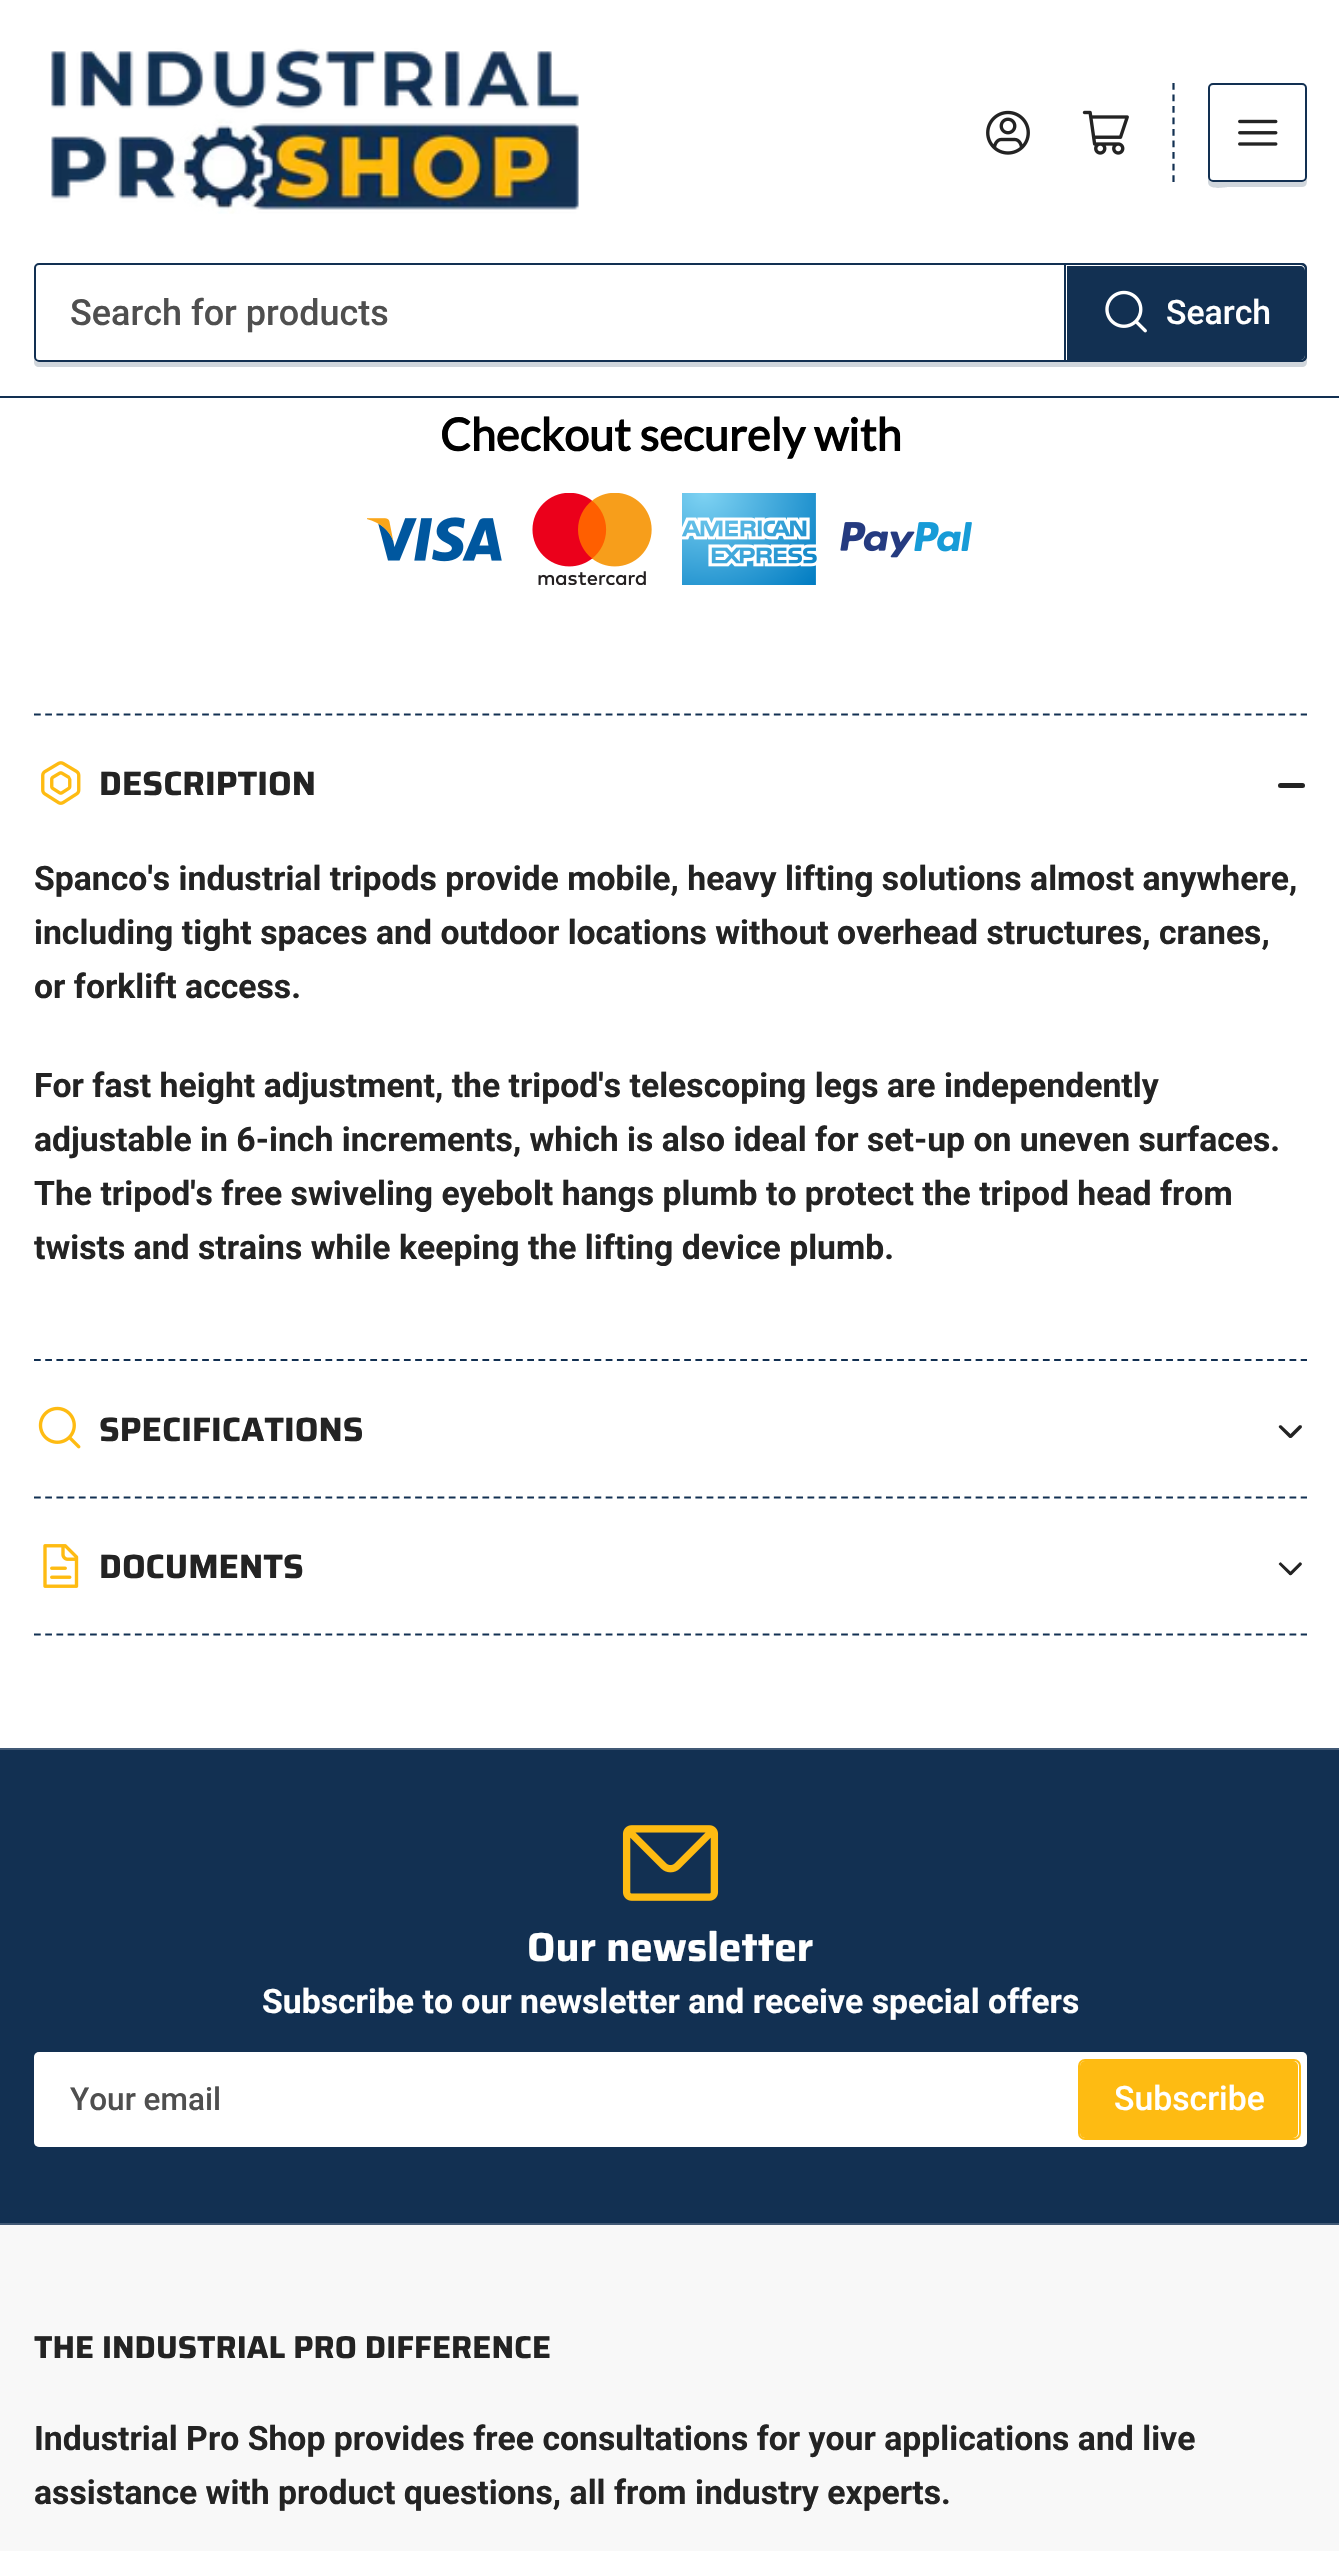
void draw(SkCanvas* canvas) {
    SkPaint paint;
    paint.setAntiAlias(true);
    canvas->clear(0xFFFFFFFF);
    paint.setColor(0xFF123052);
    canvas->drawRect(SkRect::MakeXYWH(0, 396, 1339, 2), paint);
    canvas->drawImageRect(SkImages::DeferredFromEncodedData(SkData::MakeFromFileName("img1.png")), SkRect::MakeXYWH(51, 48, 528, 166), SkSamplingOptions());
    canvas->drawImageRect(SkImages::DeferredFromEncodedData(SkData::MakeFromFileName("img2.png")), SkRect::MakeXYWH(986, 110, 44, 45), SkSamplingOptions());
    canvas->drawImageRect(SkImages::DeferredFromEncodedData(SkData::MakeFromFileName("img3.png")), SkRect::MakeXYWH(1082, 110, 47, 45), SkSamplingOptions());
    paint.setStyle(SkPaint::kStroke_Style);
    paint.setStrokeWidth(2.2f);
    paint.setPathEffect(SkDashPathEffect::Make({{6.75f, 4.77f}}, 0));
    canvas->drawPath(SkPathBuilder().moveTo(1173.5f, 83).lineTo(1173.5f, 182).detach(), paint);
    paint.setPathEffect(nullptr);
    paint.setStyle(SkPaint::kFill_Style);
    paint.setColor(0xFFD0D6DC);
    canvas->drawPath(SkPathBuilder().moveTo(1208, 91).lineTo(1208, 182).cubicTo(1208, 191, 1226, 187, 1228, 187).lineTo(1302, 187).cubicTo(1307, 187, 1307, 183, 1307, 179).cubicTo(1306, 181, 1305, 182, 1303, 182).lineTo(1213, 182).cubicTo(1210, 182, 1208, 180, 1208, 178).close().detach(), paint);
    paint.setStyle(SkPaint::kStroke_Style);
    paint.setStrokeWidth(2);
    paint.setColor(0xFF123052);
    canvas->drawRoundRect(SkRect::MakeXYWH(1209, 84, 97, 97), 4, 4, paint);
    canvas->drawImageRect(SkImages::DeferredFromEncodedData(SkData::MakeFromFileName("img4.png")), SkRect::MakeXYWH(1238, 119, 40, 27), SkSamplingOptions());
    paint.setStyle(SkPaint::kFill_Style);
    paint.setColor(0xFFD0D6DC);
    canvas->drawPath(SkPathBuilder().moveTo(34, 359).lineTo(34, 362).cubicTo(34, 365, 36, 367, 39, 367).lineTo(1302, 367).cubicTo(1305, 367, 1307, 365, 1307, 362).lineTo(1307, 359).cubicTo(1306, 361, 1305, 362, 1303, 362).lineTo(38, 362).cubicTo(36, 362, 35, 361, 34, 359).close().detach(), paint);
    paint.setColor(0xFFFFFFFF);
    canvas->drawRoundRect(SkRect::MakeXYWH(35, 264, 1271, 97), 4, 4, paint);
    paint.setStyle(SkPaint::kStroke_Style);
    paint.setColor(0xFF123052);
    canvas->drawRoundRect(SkRect::MakeXYWH(35, 264, 1271, 97), 4, 4, paint);
    SkFont font1(fontMgr->matchFamilyStyle("Roboto", SkFontStyle(500, SkFontStyle::kNormal_Width, SkFontStyle::kUpright_Slant)), 36);
    font1.setSubpixel(true);
    paint.setStyle(SkPaint::kFill_Style);
    paint.setColor(0xFF4F4F4F);
    canvas->drawString("Search for products", 70, 325, font1, paint);
    paint.setStyle(SkPaint::kStroke_Style);
    paint.setColor(0xFF123052);
    canvas->drawPath(SkPathBuilder().moveTo(1065, 264).lineTo(1300, 264).cubicTo(1303.5f, 264, 1306, 266.5f, 1306, 270).lineTo(1306, 355).cubicTo(1306, 358.5f, 1303.5f, 361, 1300, 361).lineTo(1065, 361).close().detach(), paint);
    paint.setStyle(SkPaint::kFill_Style);
    canvas->drawPath(SkPathBuilder().moveTo(1067, 266).lineTo(1300, 266).cubicTo(1303, 266, 1305, 268, 1305, 271).lineTo(1305, 355).cubicTo(1305, 358, 1303, 360, 1300, 360).lineTo(1067, 360).close().detach(), paint);
    canvas->drawImageRect(SkImages::DeferredFromEncodedData(SkData::MakeFromFileName("img5.png")), SkRect::MakeXYWH(1105, 290, 42, 43), SkSamplingOptions());
    SkFont font2(fontMgr->matchFamilyStyle("Roboto", SkFontStyle(500, SkFontStyle::kNormal_Width, SkFontStyle::kUpright_Slant)), 33.75f);
    font2.setSubpixel(true);
    paint.setColor(0xFFFFFFFF);
    canvas->drawString("Search", 1166, 324, font2, paint);
    SkFont font3(fontMgr->matchFamilyStyle("Lato", SkFontStyle::Bold()), 45);
    font3.setSubpixel(true);
    paint.setColor(0xFF000000);
    canvas->drawString("Checkout securely with", 440, 451, font3, paint);
    canvas->drawImageRect(SkImages::DeferredFromEncodedData(SkData::MakeFromFileName("img6.png")), SkRect::MakeXYWH(367, 517, 135, 45), SkSamplingOptions());
    canvas->drawImageRect(SkImages::DeferredFromEncodedData(SkData::MakeFromFileName("img7.png")), SkRect::MakeXYWH(532, 493, 120, 92), SkSamplingOptions());
    canvas->drawImageRect(SkImages::DeferredFromEncodedData(SkData::MakeFromFileName("img8.png")), SkRect::MakeXYWH(682, 493, 135, 92), SkSamplingOptions());
    canvas->drawImageRect(SkImages::DeferredFromEncodedData(SkData::MakeFromFileName("img9.png")), SkRect::MakeXYWH(840, 522, 132, 36), SkSamplingOptions());
    paint.setStyle(SkPaint::kStroke_Style);
    paint.setStrokeWidth(2.2f);
    paint.setColor(0xFF123052);
    paint.setPathEffect(SkDashPathEffect::Make({{6.75f, 4.46f}}, 0));
    canvas->drawPath(SkPathBuilder().moveTo(34, 714.5f).lineTo(1307, 714.5f).detach(), paint);
    paint.setPathEffect(nullptr);
    paint.setPathEffect(SkDashPathEffect::Make({{6.75f, 4.46f}}, 0));
    canvas->drawPath(SkPathBuilder().moveTo(34, 1360).lineTo(1307, 1360).detach(), paint);
    paint.setPathEffect(nullptr);
    canvas->drawImageRect(SkImages::DeferredFromEncodedData(SkData::MakeFromFileName("img10.png")), SkRect::MakeXYWH(41, 761, 40, 44), SkSamplingOptions());
    SkFont font4(fontMgr->matchFamilyStyle("Saira", SkFontStyle::Bold()), 33.75f);
    font4.setSubpixel(true);
    paint.setStyle(SkPaint::kFill_Style);
    paint.setColor(0xFF232323);
    canvas->drawString("DESCRIPTION", 99, 795, font4, paint);
    canvas->drawRoundRect(SkRect::MakeXYWH(1278, 783, 16, 5), 2.5f, 2.5f, paint);
    canvas->drawRoundRect(SkRect::MakeXYWH(1287, 783, 18, 5), 2.5f, 2.5f, paint);
    SkFont font5(fontMgr->matchFamilyStyle("Roboto", SkFontStyle::Bold()), 33.75f);
    font5.setSubpixel(true);
    canvas->drawString("Spanco's industrial tripods provide mobile, heavy lifting solutions almost anywhere,", 34, 890, font5, paint);
    canvas->drawString("including tight spaces and outdoor locations without overhead structures, cranes,", 34, 944, font5, paint);
    canvas->drawString("or forklift access.", 34, 998, font5, paint);
    canvas->drawString("For fast height adjustment, the tripod's telescoping legs are independently", 34, 1097, font5, paint);
    canvas->drawString("adjustable in 6-inch increments, which is also ideal for set-up on uneven surfaces.", 34, 1151, font5, paint);
    canvas->drawString("The tripod's free swiveling eyebolt hangs plumb to protect the tripod head from", 34, 1205, font5, paint);
    canvas->drawString("twists and strains while keeping the lifting device plumb.", 34, 1259, font5, paint);
    paint.setStyle(SkPaint::kStroke_Style);
    paint.setColor(0xFF123052);
    paint.setPathEffect(SkDashPathEffect::Make({{6.75f, 4.46f}}, 0));
    canvas->drawPath(SkPathBuilder().moveTo(34, 1497.5f).lineTo(1307, 1497.5f).detach(), paint);
    paint.setPathEffect(nullptr);
    canvas->drawImageRect(SkImages::DeferredFromEncodedData(SkData::MakeFromFileName("img11.png")), SkRect::MakeXYWH(38, 1406, 43, 43), SkSamplingOptions());
    paint.setStyle(SkPaint::kFill_Style);
    paint.setColor(0xFF232323);
    canvas->drawString("SPECIFICATIONS", 99, 1441, font4, paint);
    canvas->drawPath(SkPathBuilder().moveTo(1281.5f, 1425.5f).lineTo(1291.5f, 1435).cubicTo(1292, 1435.5f, 1292, 1437, 1291.5f, 1437.5f).cubicTo(1290.5f, 1438, 1289.5f, 1438, 1289, 1437.5f).lineTo(1279.5f, 1428).cubicTo(1278.5f, 1427.5f, 1278.5f, 1426, 1279.5f, 1425.5f).cubicTo(1280, 1425, 1281, 1425, 1281.5f, 1425.5f).close().detach(), paint);
    canvas->drawPath(SkPathBuilder().moveTo(1289.5f, 1435).lineTo(1299, 1425.5f).cubicTo(1299.5f, 1425, 1300.5f, 1425, 1301.5f, 1425.5f).cubicTo(1302, 1426, 1302, 1427.5f, 1301.5f, 1428).lineTo(1292, 1437.5f).cubicTo(1291, 1438, 1290, 1438, 1289.5f, 1437.5f).cubicTo(1289, 1437, 1289, 1435.5f, 1289.5f, 1435).close().detach(), paint);
    paint.setStyle(SkPaint::kStroke_Style);
    paint.setColor(0xFF123052);
    paint.setPathEffect(SkDashPathEffect::Make({{6.75f, 4.46f}}, 0));
    canvas->drawPath(SkPathBuilder().moveTo(34, 1634.5f).lineTo(1307, 1634.5f).detach(), paint);
    paint.setPathEffect(nullptr);
    canvas->drawImageRect(SkImages::DeferredFromEncodedData(SkData::MakeFromFileName("img12.png")), SkRect::MakeXYWH(43, 1544, 36, 44), SkSamplingOptions());
    paint.setStyle(SkPaint::kFill_Style);
    paint.setColor(0xFF232323);
    canvas->drawString("DOCUMENTS", 99, 1578, font4, paint);
    canvas->drawPath(SkPathBuilder().moveTo(1281.5f, 1563).lineTo(1291.5f, 1572.5f).cubicTo(1292, 1573, 1292, 1574, 1291.5f, 1574.5f).cubicTo(1290.5f, 1575.5f, 1289.5f, 1575.5f, 1289, 1574.5f).lineTo(1279.5f, 1565).cubicTo(1278.5f, 1564.5f, 1278.5f, 1563.5f, 1279.5f, 1563).cubicTo(1280, 1562, 1281, 1562, 1281.5f, 1563).close().detach(), paint);
    canvas->drawPath(SkPathBuilder().moveTo(1289.5f, 1572.5f).lineTo(1299, 1563).cubicTo(1299.5f, 1562, 1300.5f, 1562, 1301.5f, 1563).cubicTo(1302, 1563.5f, 1302, 1564.5f, 1301.5f, 1565).lineTo(1292, 1574.5f).cubicTo(1291, 1575.5f, 1290, 1575.5f, 1289.5f, 1574.5f).cubicTo(1289, 1574, 1289, 1573, 1289.5f, 1572.5f).close().detach(), paint);
    paint.setColor(0xFF123052);
    canvas->drawRect(SkRect::MakeXYWH(0, 1750, 1339, 473), paint);
    paint.setColor(0xFF415975);
    canvas->drawRect(SkRect::MakeXYWH(0, 1748, 1339, 2), paint);
    canvas->drawRect(SkRect::MakeXYWH(0, 2223, 1339, 2), paint);
    canvas->drawImageRect(SkImages::DeferredFromEncodedData(SkData::MakeFromFileName("img13.png")), SkRect::MakeXYWH(622, 1825, 97, 76), SkSamplingOptions());
    SkFont font6(fontMgr->matchFamilyStyle("Saira", SkFontStyle::Bold()), 40.5f);
    font6.setSubpixel(true);
    paint.setColor(0xFFFFFFFF);
    canvas->drawString("Our newsletter", 527, 1961, font6, paint);
    canvas->drawString("Subscribe to our newsletter and receive special offers", 262, 2013, font5, paint);
    canvas->drawRoundRect(SkRect::MakeXYWH(34, 2052, 1273, 95), 5, 5, paint);
    paint.setStyle(SkPaint::kStroke_Style);
    paint.setStrokeWidth(2);
    paint.setColor(0x33FFFFFF);
    canvas->drawRoundRect(SkRect::MakeXYWH(35, 2053, 1271, 93), 4, 4, paint);
    SkFont font7(fontMgr->matchFamilyStyle("Roboto", SkFontStyle(500, SkFontStyle::kNormal_Width, SkFontStyle::kUpright_Slant)), 31.5f);
    font7.setSubpixel(true);
    paint.setStyle(SkPaint::kFill_Style);
    paint.setColor(0xFF4F4F4F);
    canvas->drawString("Your email", 70, 2110, font7, paint);
    paint.setStyle(SkPaint::kStroke_Style);
    paint.setColor(0xFFFEBB12);
    canvas->drawRoundRect(SkRect::MakeXYWH(1079, 2060, 221, 79), 6, 6, paint);
    paint.setStyle(SkPaint::kFill_Style);
    canvas->drawRoundRect(SkRect::MakeXYWH(1080, 2061, 218, 77), 5, 5, paint);
    paint.setColor(0xFFFFFFFF);
    canvas->drawString("Subscribe", 1114, 2110, font2, paint);
    paint.setColor(0xFFF8F8F8);
    canvas->drawRect(SkRect::MakeXYWH(0, 2225, 1339, 326), paint);
    SkFont font8(fontMgr->matchFamilyStyle("Saira", SkFontStyle::Bold()), 31.5f);
    font8.setSubpixel(true);
    paint.setColor(0xFF232323);
    canvas->drawString("THE INDUSTRIAL PRO DIFFERENCE", 34, 2358, font8, paint);
    canvas->drawString("Industrial Pro Shop provides free consultations for your applications and live", 34, 2450, font5, paint);
    canvas->drawString("assistance with product questions, all from industry experts.", 34, 2504, font5, paint);
}
